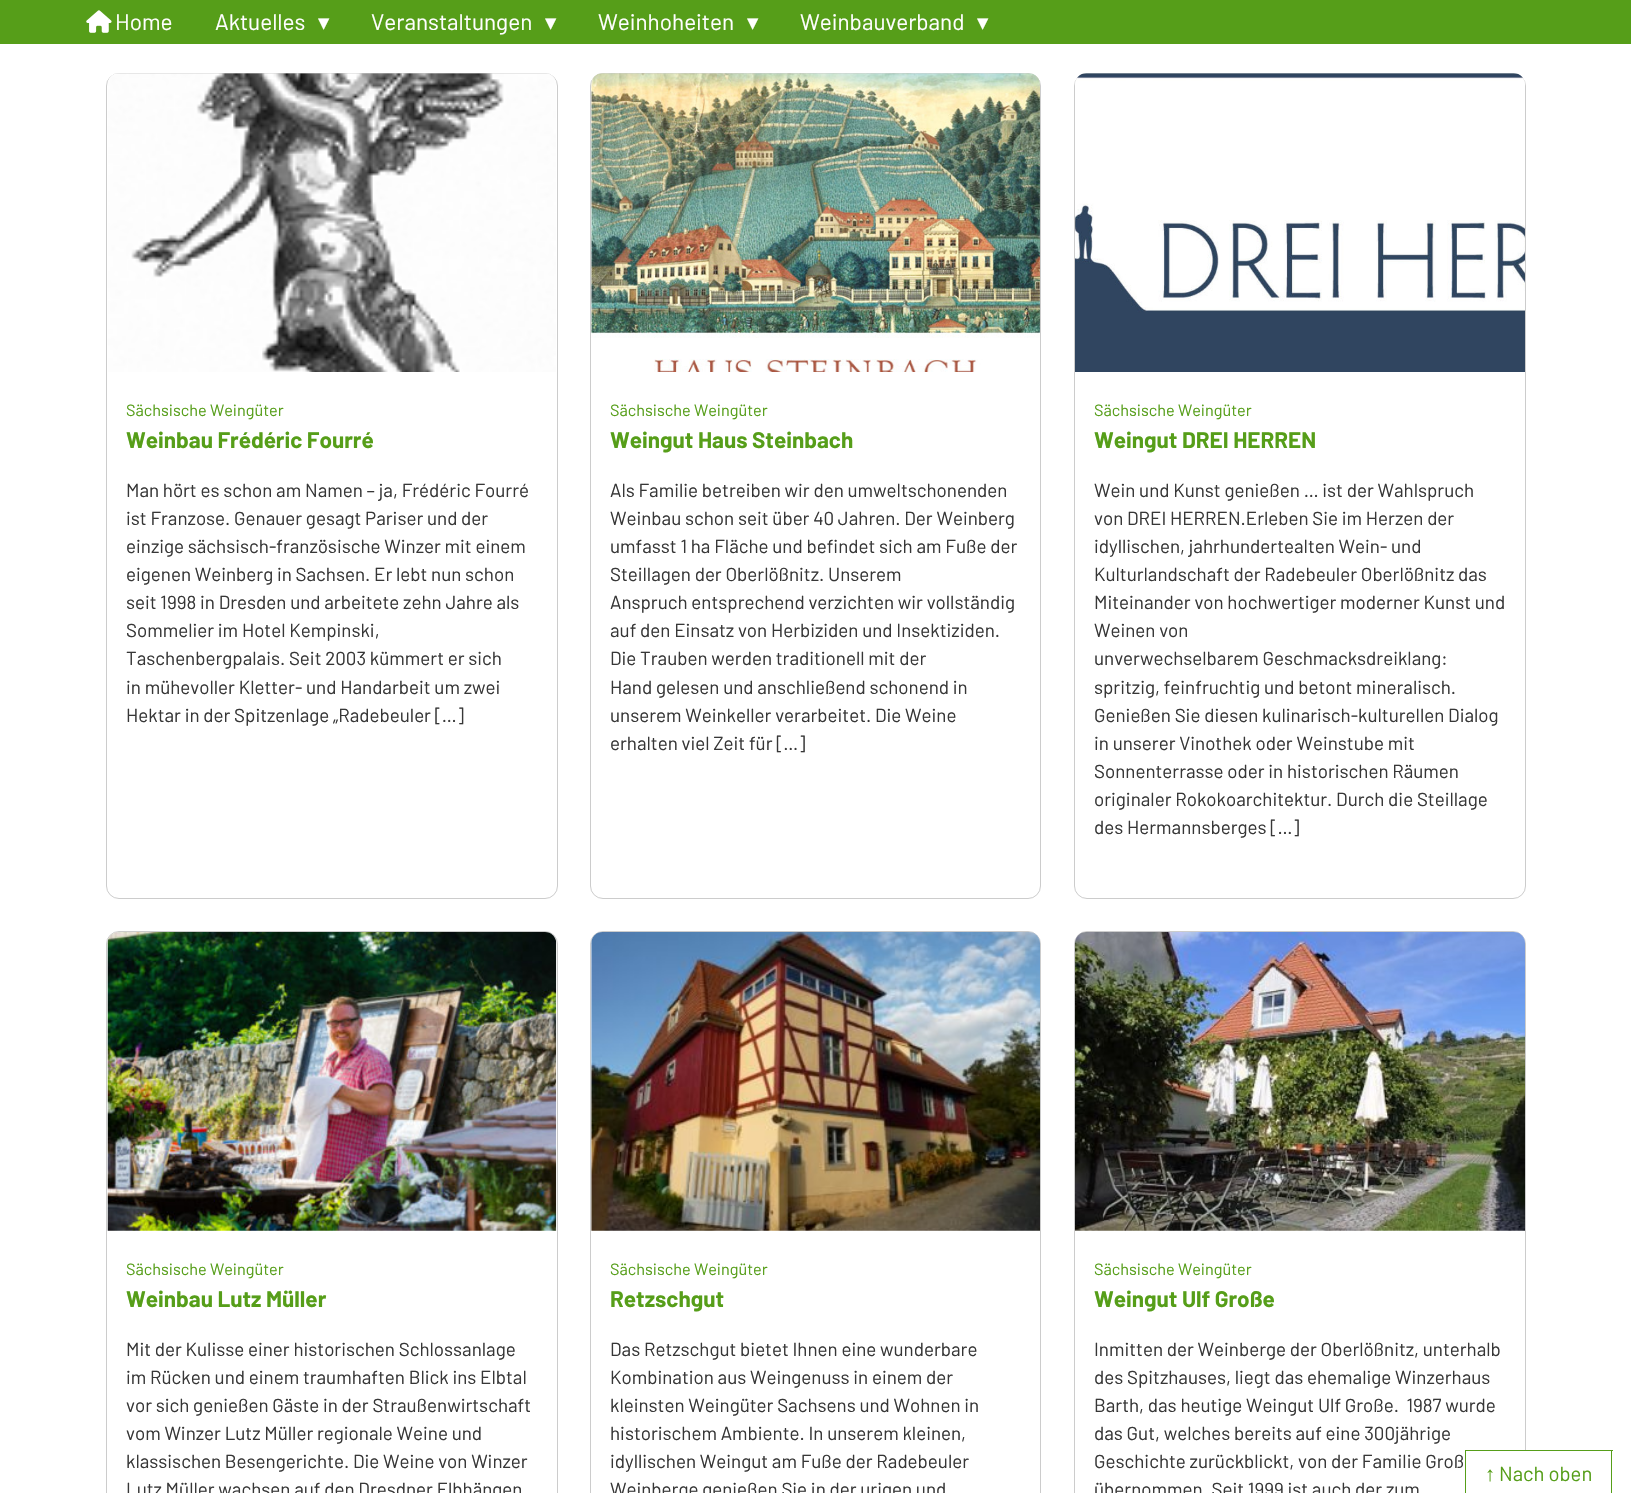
void draw(SkCanvas* canvas) {
    SkPaint paint;
    paint.setAntiAlias(true);
    canvas->clear(0xFFFFFFFF);
    paint.setColor(0xFF569E19);
    canvas->drawRect(SkRect::MakeXYWH(0, 0, 1631, 44), paint);
    canvas->drawImageRect(SkImages::DeferredFromEncodedData(SkData::MakeFromFileName("img1.png")), SkRect::MakeXYWH(86, 10, 26, 23), SkSamplingOptions());
    SkFont font1(fontMgr->matchFamilyStyle("Barlow", SkFontStyle::Normal()), 22.5f);
    font1.setSubpixel(true);
    paint.setColor(0xFFFFFFFF);
    canvas->drawString("Home", 115, 30, font1, paint);
    canvas->drawString("Aktuelles", 215, 30, font1, paint);
    SkFont font2(fontMgr->matchFamilyStyle("DejaVu Sans", SkFontStyle::Normal()), 22.5f);
    font2.setSubpixel(true);
    canvas->drawString("▾", 318, 30, font2, paint);
    canvas->drawString("Veranstaltungen", 371, 30, font1, paint);
    canvas->drawString("▾", 545, 30, font2, paint);
    canvas->drawString("Weinhoheiten", 598, 30, font1, paint);
    canvas->drawString("▾", 747, 30, font2, paint);
    canvas->drawString("Weinbauverband", 800, 30, font1, paint);
    canvas->drawString("▾", 977, 30, font2, paint);
    paint.setStyle(SkPaint::kStroke_Style);
    paint.setStrokeWidth(1);
    paint.setColor(0xFFCCCCCC);
    canvas->drawRoundRect(SkRect::MakeXYWH(106.5f, 73.5f, 451, 825), 12.5f, 12.5f, paint);
    canvas->drawImageRect(SkImages::DeferredFromEncodedData(SkData::MakeFromFileName("img2.png")), SkRect::MakeXYWH(107, 73, 449, 299), SkSamplingOptions());
    SkFont font3(fontMgr->matchFamilyStyle("Barlow", SkFontStyle::Normal()), 16.25f);
    font3.setSubpixel(true);
    paint.setStyle(SkPaint::kFill_Style);
    paint.setColor(0xFF569E19);
    canvas->drawString("Sächsische Weingüter", 126, 416, font3, paint);
    SkFont font4(fontMgr->matchFamilyStyle("Barlow", SkFontStyle::Bold()), 22.5f);
    font4.setSubpixel(true);
    canvas->drawString("Weinbau Frédéric Fourré", 126, 448, font4, paint);
    SkFont font5(fontMgr->matchFamilyStyle("Barlow", SkFontStyle::Normal()), 18.75f);
    font5.setSubpixel(true);
    paint.setColor(0xFF373737);
    canvas->drawString("Man hört es schon am Namen – ja, Frédéric Fourré", 126, 497, font5, paint);
    canvas->drawString("ist Franzose. Genauer gesagt Pariser und der", 126, 525, font5, paint);
    canvas->drawString("einzige sächsisch-französische Winzer mit einem", 126, 553, font5, paint);
    canvas->drawString("eigenen Weinberg in Sachsen. Er lebt nun schon", 126, 581, font5, paint);
    canvas->drawString("seit 1998 in Dresden und arbeitete zehn Jahre als", 126, 609, font5, paint);
    canvas->drawString("Sommelier im Hotel Kempinski,", 126, 637, font5, paint);
    canvas->drawString("Taschenbergpalais. Seit 2003 kümmert er sich", 126, 665, font5, paint);
    canvas->drawString("in mühevoller Kletter- und Handarbeit um zwei", 126, 694, font5, paint);
    canvas->drawString("Hektar in der Spitzenlage „Radebeuler […]", 126, 722, font5, paint);
    paint.setStyle(SkPaint::kStroke_Style);
    paint.setColor(0xFFCCCCCC);
    canvas->drawRoundRect(SkRect::MakeXYWH(590.5f, 73.5f, 450, 825), 12.5f, 12.5f, paint);
    canvas->drawImageRect(SkImages::DeferredFromEncodedData(SkData::MakeFromFileName("img3.png")), SkRect::MakeXYWH(591, 73, 449, 299), SkSamplingOptions());
    paint.setStyle(SkPaint::kFill_Style);
    paint.setColor(0xFF569E19);
    canvas->drawString("Sächsische Weingüter", 610, 416, font3, paint);
    canvas->drawString("Weingut Haus Steinbach", 610, 448, font4, paint);
    paint.setColor(0xFF373737);
    canvas->drawString("Als Familie betreiben wir den umweltschonenden", 610, 497, font5, paint);
    canvas->drawString("Weinbau schon seit über 40 Jahren. Der Weinberg", 610, 525, font5, paint);
    canvas->drawString("umfasst 1 ha Fläche und befindet sich am Fuße der", 610, 553, font5, paint);
    canvas->drawString("Steillagen der Oberlößnitz. Unserem", 610, 581, font5, paint);
    canvas->drawString("Anspruch entsprechend verzichten wir vollständig", 610, 609, font5, paint);
    canvas->drawString("auf den Einsatz von Herbiziden und Insektiziden.", 610, 637, font5, paint);
    canvas->drawString("Die Trauben werden traditionell mit der", 610, 665, font5, paint);
    canvas->drawString("Hand gelesen und anschließend schonend in", 610, 694, font5, paint);
    canvas->drawString("unserem Weinkeller verarbeitet. Die Weine", 610, 722, font5, paint);
    canvas->drawString("erhalten viel Zeit für […]", 610, 750, font5, paint);
    paint.setStyle(SkPaint::kStroke_Style);
    paint.setColor(0xFFCCCCCC);
    canvas->drawRoundRect(SkRect::MakeXYWH(1074.5f, 73.5f, 451, 825), 12.5f, 12.5f, paint);
    canvas->drawImageRect(SkImages::DeferredFromEncodedData(SkData::MakeFromFileName("img4.png")), SkRect::MakeXYWH(1075, 73, 450, 299), SkSamplingOptions());
    paint.setStyle(SkPaint::kFill_Style);
    paint.setColor(0xFF569E19);
    canvas->drawString("Sächsische Weingüter", 1094, 416, font3, paint);
    canvas->drawString("Weingut DREI HERREN", 1094, 448, font4, paint);
    paint.setColor(0xFF373737);
    canvas->drawString("Wein und Kunst genießen … ist der Wahlspruch", 1094, 497, font5, paint);
    canvas->drawString("von DREI HERREN.Erleben Sie im Herzen der", 1094, 525, font5, paint);
    canvas->drawString("idyllischen, jahrhundertealten Wein- und", 1094, 553, font5, paint);
    canvas->drawString("Kulturlandschaft der Radebeuler Oberlößnitz das", 1094, 581, font5, paint);
    canvas->drawString("Miteinander von hochwertiger moderner Kunst und", 1094, 609, font5, paint);
    canvas->drawString("Weinen von", 1094, 637, font5, paint);
    canvas->drawString("unverwechselbarem Geschmacksdreiklang:", 1094, 665, font5, paint);
    canvas->drawString("spritzig, feinfruchtig und betont mineralisch.", 1094, 694, font5, paint);
    canvas->drawString("Genießen Sie diesen kulinarisch-kulturellen Dialog", 1094, 722, font5, paint);
    canvas->drawString("in unserer Vinothek oder Weinstube mit", 1094, 750, font5, paint);
    canvas->drawString("Sonnenterrasse oder in historischen Räumen", 1094, 778, font5, paint);
    canvas->drawString("originaler Rokokoarchitektur. Durch die Steillage", 1094, 806, font5, paint);
    canvas->drawString("des Hermannsberges […]", 1094, 834, font5, paint);
    paint.setStyle(SkPaint::kStroke_Style);
    paint.setColor(0xFFCCCCCC);
    canvas->drawRoundRect(SkRect::MakeXYWH(106.5f, 931.5f, 451, 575), 12.5f, 12.5f, paint);
    canvas->drawImageRect(SkImages::DeferredFromEncodedData(SkData::MakeFromFileName("img5.png")), SkRect::MakeXYWH(107, 932, 450, 299), SkSamplingOptions());
    paint.setStyle(SkPaint::kFill_Style);
    paint.setColor(0xFF569E19);
    canvas->drawString("Sächsische Weingüter", 126, 1275, font3, paint);
    canvas->drawString("Weinbau Lutz Müller", 126, 1307, font4, paint);
    paint.setColor(0xFF373737);
    canvas->drawString("Mit der Kulisse einer historischen Schlossanlage", 126, 1356, font5, paint);
    canvas->drawString("im Rücken und einem traumhaften Blick ins Elbtal", 126, 1384, font5, paint);
    canvas->drawString("vor sich genießen Gäste in der Straußenwirtschaft", 126, 1412, font5, paint);
    canvas->drawString("vom Winzer Lutz Müller regionale Weine und", 126, 1440, font5, paint);
    canvas->drawString("klassischen Besengerichte. Die Weine von Winzer", 126, 1468, font5, paint);
    canvas->drawString("Lutz Müller wachsen auf den Dresdner Elbhängen", 126, 1496, font5, paint);
    paint.setStyle(SkPaint::kStroke_Style);
    paint.setColor(0xFFCCCCCC);
    canvas->drawRoundRect(SkRect::MakeXYWH(590.5f, 931.5f, 450, 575), 12.5f, 12.5f, paint);
    canvas->drawImageRect(SkImages::DeferredFromEncodedData(SkData::MakeFromFileName("img6.png")), SkRect::MakeXYWH(591, 932, 449, 299), SkSamplingOptions());
    paint.setStyle(SkPaint::kFill_Style);
    paint.setColor(0xFF569E19);
    canvas->drawString("Sächsische Weingüter", 610, 1275, font3, paint);
    canvas->drawString("Retzschgut", 610, 1307, font4, paint);
    paint.setColor(0xFF373737);
    canvas->drawString("Das Retzschgut bietet Ihnen eine wunderbare", 610, 1356, font5, paint);
    canvas->drawString("Kombination aus Weingenuss in einem der", 610, 1384, font5, paint);
    canvas->drawString("kleinsten Weingüter Sachsens und Wohnen in", 610, 1412, font5, paint);
    canvas->drawString("historischem Ambiente. In unserem kleinen,", 610, 1440, font5, paint);
    canvas->drawString("idyllischen Weingut am Fuße der Radebeuler", 610, 1468, font5, paint);
    canvas->drawString("Weinberge genießen Sie in der urigen und", 610, 1496, font5, paint);
    paint.setStyle(SkPaint::kStroke_Style);
    paint.setColor(0xFFCCCCCC);
    canvas->drawRoundRect(SkRect::MakeXYWH(1074.5f, 931.5f, 451, 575), 12.5f, 12.5f, paint);
    canvas->drawImageRect(SkImages::DeferredFromEncodedData(SkData::MakeFromFileName("img7.png")), SkRect::MakeXYWH(1075, 932, 450, 299), SkSamplingOptions());
    paint.setStyle(SkPaint::kFill_Style);
    paint.setColor(0xFF569E19);
    canvas->drawString("Sächsische Weingüter", 1094, 1275, font3, paint);
    canvas->drawString("Weingut Ulf Große", 1094, 1307, font4, paint);
    paint.setColor(0xFF373737);
    canvas->drawString("Inmitten der Weinberge der Oberlößnitz, unterhalb", 1094, 1356, font5, paint);
    canvas->drawString("des Spitzhauses, liegt das ehemalige Winzerhaus", 1094, 1384, font5, paint);
    canvas->drawString("Barth, das heutige Weingut Ulf Große.  1987 wurde", 1094, 1412, font5, paint);
    canvas->drawString("das Gut, welches bereits auf eine 300jährige", 1094, 1440, font5, paint);
    canvas->drawString("Geschichte zurückblickt, von der Familie Groß", 1094, 1468, font5, paint);
    canvas->drawString("übernommen. Seit 1999 ist auch der zum", 1094, 1496, font5, paint);
    SkFont font6(fontMgr->matchFamilyStyle("Liberation Sans", SkFontStyle::Normal()), 20.25f);
    font6.setSubpixel(true);
    paint.setColor(0xFF569E19);
    canvas->drawString("↑", 1485, 1481, font6, paint);
    canvas->drawRect(SkRect::MakeXYWH(1465, 1450, 148, 1), paint);
    canvas->drawRect(SkRect::MakeXYWH(1465, 1450, 1, 43), paint);
    paint.setColor(0xFFFFFFFF);
    canvas->drawRect(SkRect::MakeXYWH(1525, 1451, 1, 42), paint);
    SkFont font7(fontMgr->matchFamilyStyle("Barlow", SkFontStyle::Normal()), 20.25f);
    font7.setSubpixel(true);
    paint.setColor(0xFF569E19);
    canvas->drawString("Nach oben", 1499, 1481, font7, paint);
    canvas->drawRect(SkRect::MakeXYWH(1611, 1450, 1, 43), paint);
}
